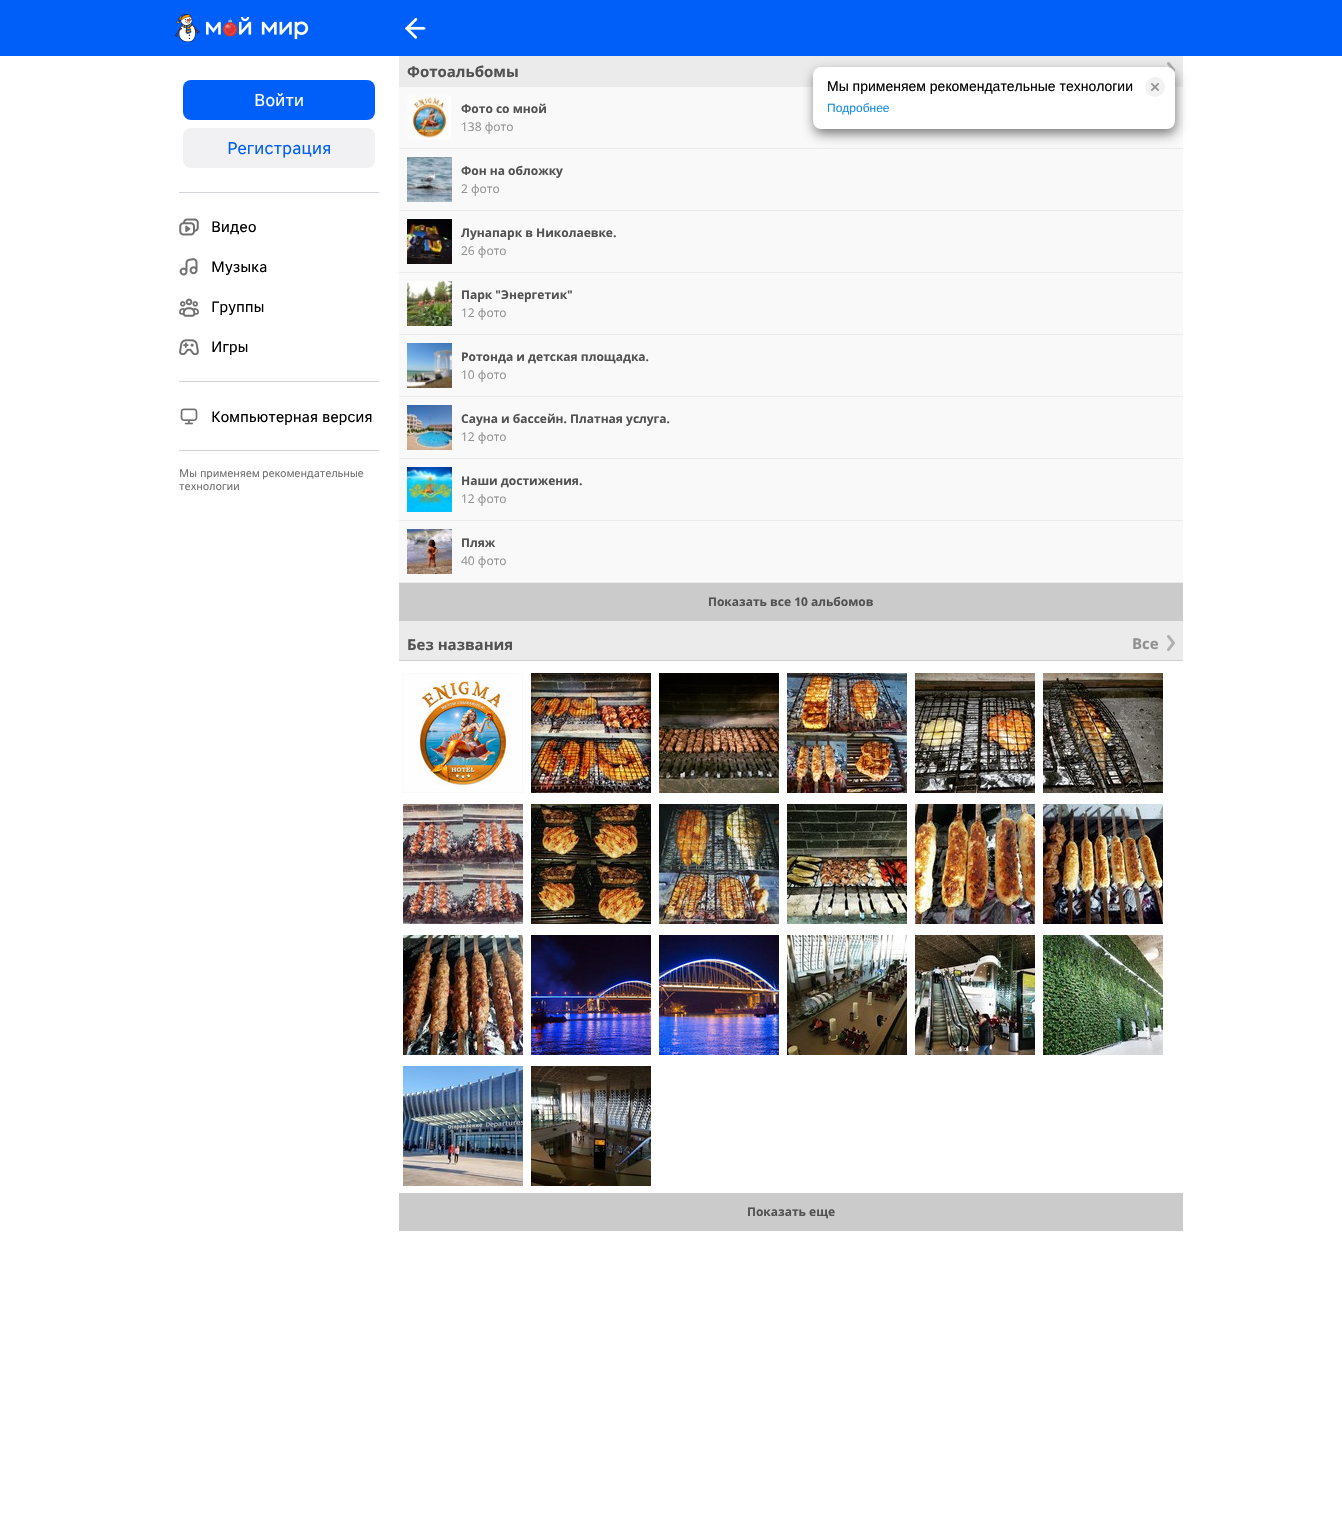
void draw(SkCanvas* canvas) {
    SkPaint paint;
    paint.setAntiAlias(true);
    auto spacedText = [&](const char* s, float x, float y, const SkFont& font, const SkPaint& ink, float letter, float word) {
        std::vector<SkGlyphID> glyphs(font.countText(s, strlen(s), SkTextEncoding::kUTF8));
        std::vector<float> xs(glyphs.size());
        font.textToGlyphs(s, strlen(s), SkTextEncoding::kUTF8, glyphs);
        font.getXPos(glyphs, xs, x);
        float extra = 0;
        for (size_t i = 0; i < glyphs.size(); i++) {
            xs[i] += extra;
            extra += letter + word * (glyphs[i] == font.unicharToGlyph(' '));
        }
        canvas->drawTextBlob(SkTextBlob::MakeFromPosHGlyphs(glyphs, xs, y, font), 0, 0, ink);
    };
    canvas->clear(0xFFFFFFFF);
    paint.setColor(0xFFEBEBEB);
    canvas->drawRect(SkRect::MakeXYWH(399, 56, 784, 604), paint);
    SkFont font1(fontMgr->matchFamilyStyle("Open Sans", SkFontStyle::Bold()), 15);
    font1.setSubpixel(true);
    paint.setColor(0xFF525252);
    canvas->drawString("Фотоальбомы", 407, 77, font1, paint);
    canvas->drawImageRect(SkImages::DeferredFromEncodedData(SkData::MakeFromFileName("img1.png")), SkRect::MakeXYWH(1167, 62, 8, 10), SkSamplingOptions());
    paint.setColor(0xFFF9F9F9);
    canvas->drawRect(SkRect::MakeXYWH(399, 87, 784, 61), paint);
    canvas->drawImageRect(SkImages::DeferredFromEncodedData(SkData::MakeFromFileName("img2.png")), SkRect::MakeXYWH(407, 95, 45, 45), SkSamplingOptions());
    SkFont font2(fontMgr->matchFamilyStyle("Open Sans", SkFontStyle::Bold()), 12);
    font2.setSubpixel(true);
    paint.setColor(0xFF525252);
    canvas->drawString("Фото со мной", 461, 113, font2, paint);
    SkFont font3(fontMgr->matchFamilyStyle("Open Sans", SkFontStyle::Normal()), 12);
    font3.setSubpixel(true);
    paint.setColor(0xFF919191);
    canvas->drawString("138 фото", 461, 131, font3, paint);
    paint.setColor(0xFFF9F9F9);
    canvas->drawRect(SkRect::MakeXYWH(399, 149, 784, 61), paint);
    canvas->drawImageRect(SkImages::DeferredFromEncodedData(SkData::MakeFromFileName("img3.png")), SkRect::MakeXYWH(407, 157, 45, 45), SkSamplingOptions());
    paint.setColor(0xFF525252);
    canvas->drawString("Фон на обложку", 461, 175, font2, paint);
    paint.setColor(0xFF919191);
    canvas->drawString("2 фото", 461, 193, font3, paint);
    paint.setColor(0xFFF9F9F9);
    canvas->drawRect(SkRect::MakeXYWH(399, 211, 784, 61), paint);
    canvas->drawImageRect(SkImages::DeferredFromEncodedData(SkData::MakeFromFileName("img4.png")), SkRect::MakeXYWH(407, 219, 45, 45), SkSamplingOptions());
    paint.setColor(0xFF525252);
    canvas->drawString("Лунапарк в Николаевке.", 461, 237, font2, paint);
    paint.setColor(0xFF919191);
    canvas->drawString("26 фото", 461, 255, font3, paint);
    paint.setColor(0xFFF9F9F9);
    canvas->drawRect(SkRect::MakeXYWH(399, 273, 784, 61), paint);
    canvas->drawImageRect(SkImages::DeferredFromEncodedData(SkData::MakeFromFileName("img5.png")), SkRect::MakeXYWH(407, 281, 45, 45), SkSamplingOptions());
    paint.setColor(0xFF525252);
    canvas->drawString("Парк \"Энергетик\"", 461, 299, font2, paint);
    paint.setColor(0xFF919191);
    canvas->drawString("12 фото", 461, 317, font3, paint);
    paint.setColor(0xFFF9F9F9);
    canvas->drawRect(SkRect::MakeXYWH(399, 335, 784, 61), paint);
    canvas->drawImageRect(SkImages::DeferredFromEncodedData(SkData::MakeFromFileName("img6.png")), SkRect::MakeXYWH(407, 343, 45, 45), SkSamplingOptions());
    paint.setColor(0xFF525252);
    canvas->drawString("Ротонда и детская площадка.", 461, 361, font2, paint);
    paint.setColor(0xFF919191);
    canvas->drawString("10 фото", 461, 379, font3, paint);
    paint.setColor(0xFFF9F9F9);
    canvas->drawRect(SkRect::MakeXYWH(399, 397, 784, 61), paint);
    canvas->drawImageRect(SkImages::DeferredFromEncodedData(SkData::MakeFromFileName("img7.png")), SkRect::MakeXYWH(407, 405, 45, 45), SkSamplingOptions());
    paint.setColor(0xFF525252);
    canvas->drawString("Сауна и бассейн. Платная услуга.", 461, 423, font2, paint);
    paint.setColor(0xFF919191);
    canvas->drawString("12 фото", 461, 441, font3, paint);
    paint.setColor(0xFFF9F9F9);
    canvas->drawRect(SkRect::MakeXYWH(399, 459, 784, 61), paint);
    canvas->drawImageRect(SkImages::DeferredFromEncodedData(SkData::MakeFromFileName("img8.png")), SkRect::MakeXYWH(407, 467, 45, 45), SkSamplingOptions());
    paint.setColor(0xFF525252);
    canvas->drawString("Наши достижения.", 461, 485, font2, paint);
    paint.setColor(0xFF919191);
    canvas->drawString("12 фото", 461, 503, font3, paint);
    paint.setColor(0xFFF9F9F9);
    canvas->drawRect(SkRect::MakeXYWH(399, 521, 784, 61), paint);
    canvas->drawImageRect(SkImages::DeferredFromEncodedData(SkData::MakeFromFileName("img9.png")), SkRect::MakeXYWH(407, 529, 45, 45), SkSamplingOptions());
    paint.setColor(0xFF525252);
    canvas->drawString("Пляж", 461, 547, font2, paint);
    paint.setColor(0xFF919191);
    canvas->drawString("40 фото", 461, 565, font3, paint);
    paint.setColor(0xFFCBCBCB);
    canvas->drawRect(SkRect::MakeXYWH(399, 583, 784, 38), paint);
    paint.setColor(0xFF525252);
    canvas->drawString("Показать все 10 альбомов", 708, 606, font2, paint);
    paint.setColor(0xFFCFCDCD);
    canvas->drawRect(SkRect::MakeXYWH(399, 660, 784, 1), paint);
    paint.setColor(0xFF525252);
    canvas->drawString("Без названия", 407, 650, font1, paint);
    paint.setColor(0xFF919191);
    canvas->drawString("Все", 1132, 649, font1, paint);
    canvas->drawImageRect(SkImages::DeferredFromEncodedData(SkData::MakeFromFileName("img10.png")), SkRect::MakeXYWH(1167, 635, 8, 16), SkSamplingOptions());
    canvas->drawImageRect(SkImages::DeferredFromEncodedData(SkData::MakeFromFileName("img11.png")), SkRect::MakeXYWH(403, 673, 120, 120), SkSamplingOptions());
    canvas->drawImageRect(SkImages::DeferredFromEncodedData(SkData::MakeFromFileName("img12.png")), SkRect::MakeXYWH(531, 673, 120, 120), SkSamplingOptions());
    canvas->drawImageRect(SkImages::DeferredFromEncodedData(SkData::MakeFromFileName("img13.png")), SkRect::MakeXYWH(659, 673, 120, 120), SkSamplingOptions());
    canvas->drawImageRect(SkImages::DeferredFromEncodedData(SkData::MakeFromFileName("img14.png")), SkRect::MakeXYWH(787, 673, 120, 120), SkSamplingOptions());
    canvas->drawImageRect(SkImages::DeferredFromEncodedData(SkData::MakeFromFileName("img15.png")), SkRect::MakeXYWH(915, 673, 120, 120), SkSamplingOptions());
    canvas->drawImageRect(SkImages::DeferredFromEncodedData(SkData::MakeFromFileName("img16.png")), SkRect::MakeXYWH(1043, 673, 120, 120), SkSamplingOptions());
    canvas->drawImageRect(SkImages::DeferredFromEncodedData(SkData::MakeFromFileName("img17.png")), SkRect::MakeXYWH(403, 804, 120, 120), SkSamplingOptions());
    canvas->drawImageRect(SkImages::DeferredFromEncodedData(SkData::MakeFromFileName("img18.png")), SkRect::MakeXYWH(531, 804, 120, 120), SkSamplingOptions());
    canvas->drawImageRect(SkImages::DeferredFromEncodedData(SkData::MakeFromFileName("img19.png")), SkRect::MakeXYWH(659, 804, 120, 120), SkSamplingOptions());
    canvas->drawImageRect(SkImages::DeferredFromEncodedData(SkData::MakeFromFileName("img20.png")), SkRect::MakeXYWH(787, 804, 120, 120), SkSamplingOptions());
    canvas->drawImageRect(SkImages::DeferredFromEncodedData(SkData::MakeFromFileName("img21.png")), SkRect::MakeXYWH(915, 804, 120, 120), SkSamplingOptions());
    canvas->drawImageRect(SkImages::DeferredFromEncodedData(SkData::MakeFromFileName("img22.png")), SkRect::MakeXYWH(1043, 804, 120, 120), SkSamplingOptions());
    canvas->drawImageRect(SkImages::DeferredFromEncodedData(SkData::MakeFromFileName("img23.png")), SkRect::MakeXYWH(403, 935, 120, 120), SkSamplingOptions());
    canvas->drawImageRect(SkImages::DeferredFromEncodedData(SkData::MakeFromFileName("img24.png")), SkRect::MakeXYWH(531, 935, 120, 120), SkSamplingOptions());
    canvas->drawImageRect(SkImages::DeferredFromEncodedData(SkData::MakeFromFileName("img25.png")), SkRect::MakeXYWH(659, 935, 120, 120), SkSamplingOptions());
    canvas->drawImageRect(SkImages::DeferredFromEncodedData(SkData::MakeFromFileName("img26.png")), SkRect::MakeXYWH(787, 935, 120, 120), SkSamplingOptions());
    canvas->drawImageRect(SkImages::DeferredFromEncodedData(SkData::MakeFromFileName("img27.png")), SkRect::MakeXYWH(915, 935, 120, 120), SkSamplingOptions());
    canvas->drawImageRect(SkImages::DeferredFromEncodedData(SkData::MakeFromFileName("img28.png")), SkRect::MakeXYWH(1043, 935, 120, 120), SkSamplingOptions());
    canvas->drawImageRect(SkImages::DeferredFromEncodedData(SkData::MakeFromFileName("img29.png")), SkRect::MakeXYWH(403, 1066, 120, 120), SkSamplingOptions());
    canvas->drawImageRect(SkImages::DeferredFromEncodedData(SkData::MakeFromFileName("img30.png")), SkRect::MakeXYWH(531, 1066, 120, 120), SkSamplingOptions());
    paint.setColor(0xFFCBCBCB);
    canvas->drawRect(SkRect::MakeXYWH(399, 1193, 784, 38), paint);
    paint.setColor(0xFF525252);
    canvas->drawString("Показать еще", 747, 1216, font2, paint);
    paint.setColor(0xFF015FF9);
    canvas->drawRoundRect(SkRect::MakeXYWH(183, 80, 192, 40), 8, 8, paint);
    SkFont font4(fontMgr->matchFamilyStyle("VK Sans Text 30", SkFontStyle::Normal()), 17);
    font4.setSubpixel(true);
    paint.setColor(0xFFFFFFFF);
    spacedText("Войти", 254, 106, font4, paint, -0.2f, 0);
    paint.setColor(0xFFF1F1F3);
    canvas->drawRoundRect(SkRect::MakeXYWH(183, 128, 192, 40), 8, 8, paint);
    paint.setColor(0xFF015FF9);
    spacedText("Регистрация", 227, 154, font4, paint, -0.2f, 0);
    paint.setColor(0xFFD2D3DA);
    canvas->drawRect(SkRect::MakeXYWH(179, 192, 200, 1), paint);
    canvas->drawImageRect(SkImages::DeferredFromEncodedData(SkData::MakeFromFileName("img31.png")), SkRect::MakeXYWH(179, 218, 20, 18), SkSamplingOptions());
    SkFont font5(fontMgr->matchFamilyStyle("VK Sans Text 30", SkFontStyle::Normal()), 15);
    font5.setSubpixel(true);
    paint.setColor(0xFF000000);
    spacedText("Видео", 211, 232, font5, paint, -0.2f, 0);
    canvas->drawImageRect(SkImages::DeferredFromEncodedData(SkData::MakeFromFileName("img32.png")), SkRect::MakeXYWH(179, 258, 19, 18), SkSamplingOptions());
    spacedText("Музыка", 211, 272, font5, paint, -0.2f, 0);
    canvas->drawImageRect(SkImages::DeferredFromEncodedData(SkData::MakeFromFileName("img33.png")), SkRect::MakeXYWH(179, 298, 20, 19), SkSamplingOptions());
    spacedText("Группы", 211, 312, font5, paint, -0.2f, 0);
    canvas->drawImageRect(SkImages::DeferredFromEncodedData(SkData::MakeFromFileName("img34.png")), SkRect::MakeXYWH(179, 339, 20, 17), SkSamplingOptions());
    spacedText("Игры", 211, 352, font5, paint, -0.2f, 0);
    paint.setColor(0xFFD2D3DA);
    canvas->drawRect(SkRect::MakeXYWH(179, 381, 200, 1), paint);
    canvas->drawImageRect(SkImages::DeferredFromEncodedData(SkData::MakeFromFileName("img35.png")), SkRect::MakeXYWH(180, 408, 18, 17), SkSamplingOptions());
    paint.setColor(0xFF000000);
    spacedText("Компьютерная", 211, 422, font5, paint, -0.2f, 0);
    spacedText("версия", 322, 422, font5, paint, -0.2f, 0);
    paint.setColor(0xFFD2D3DA);
    canvas->drawRect(SkRect::MakeXYWH(179, 450, 200, 1), paint);
    SkFont font6(fontMgr->matchFamilyStyle("VK Sans Text 30", SkFontStyle::Normal()), 11);
    font6.setSubpixel(true);
    paint.setColor(0xFF707070);
    spacedText("Мы", 179, 477, font6, paint, -0.2f, 0);
    spacedText("применяем", 200, 477, font6, paint, -0.2f, 0);
    spacedText("рекомендательные", 262, 477, font6, paint, -0.2f, 0);
    spacedText("технологии", 179, 490, font6, paint, -0.2f, 0);
    paint.setColor(0xFF015FF9);
    canvas->drawRect(SkRect::MakeXYWH(0, 0, 1342, 56), paint);
    canvas->drawImageRect(SkImages::DeferredFromEncodedData(SkData::MakeFromFileName("img36.png")), SkRect::MakeXYWH(175, 14, 134, 28), SkSamplingOptions());
    canvas->drawImageRect(SkImages::DeferredFromEncodedData(SkData::MakeFromFileName("img37.png")), SkRect::MakeXYWH(405, 18, 21, 21), SkSamplingOptions());
    paint.setColor(0x80000000);
    paint.setMaskFilter(SkMaskFilter::MakeBlur(kNormal_SkBlurStyle, 6));
    canvas->drawRoundRect(SkRect::MakeXYWH(814, 72, 362, 62), 8, 8, paint);
    paint.setMaskFilter(nullptr);
    paint.setColor(0xFFFFFFFF);
    canvas->drawRoundRect(SkRect::MakeXYWH(813, 67, 362, 62), 8, 8, paint);
    SkFont font7(fontMgr->matchFamilyStyle("Liberation Sans", SkFontStyle::Normal()), 14);
    font7.setSubpixel(true);
    paint.setColor(0xFF000000);
    canvas->drawString("Мы применяем рекомендательные технологии", 827, 91, font7, paint);
    paint.setColor(0xFFF2F2F2);
    canvas->drawCircle(1155, 87, 10, paint);
    canvas->drawImageRect(SkImages::DeferredFromEncodedData(SkData::MakeFromFileName("img38.png")), SkRect::MakeXYWH(1151, 83, 8, 8), SkSamplingOptions());
    SkFont font8(fontMgr->matchFamilyStyle("Liberation Sans", SkFontStyle::Normal()), 12);
    font8.setSubpixel(true);
    paint.setColor(0xFF168DE2);
    canvas->drawString("Подробнее", 827, 112, font8, paint);
}
